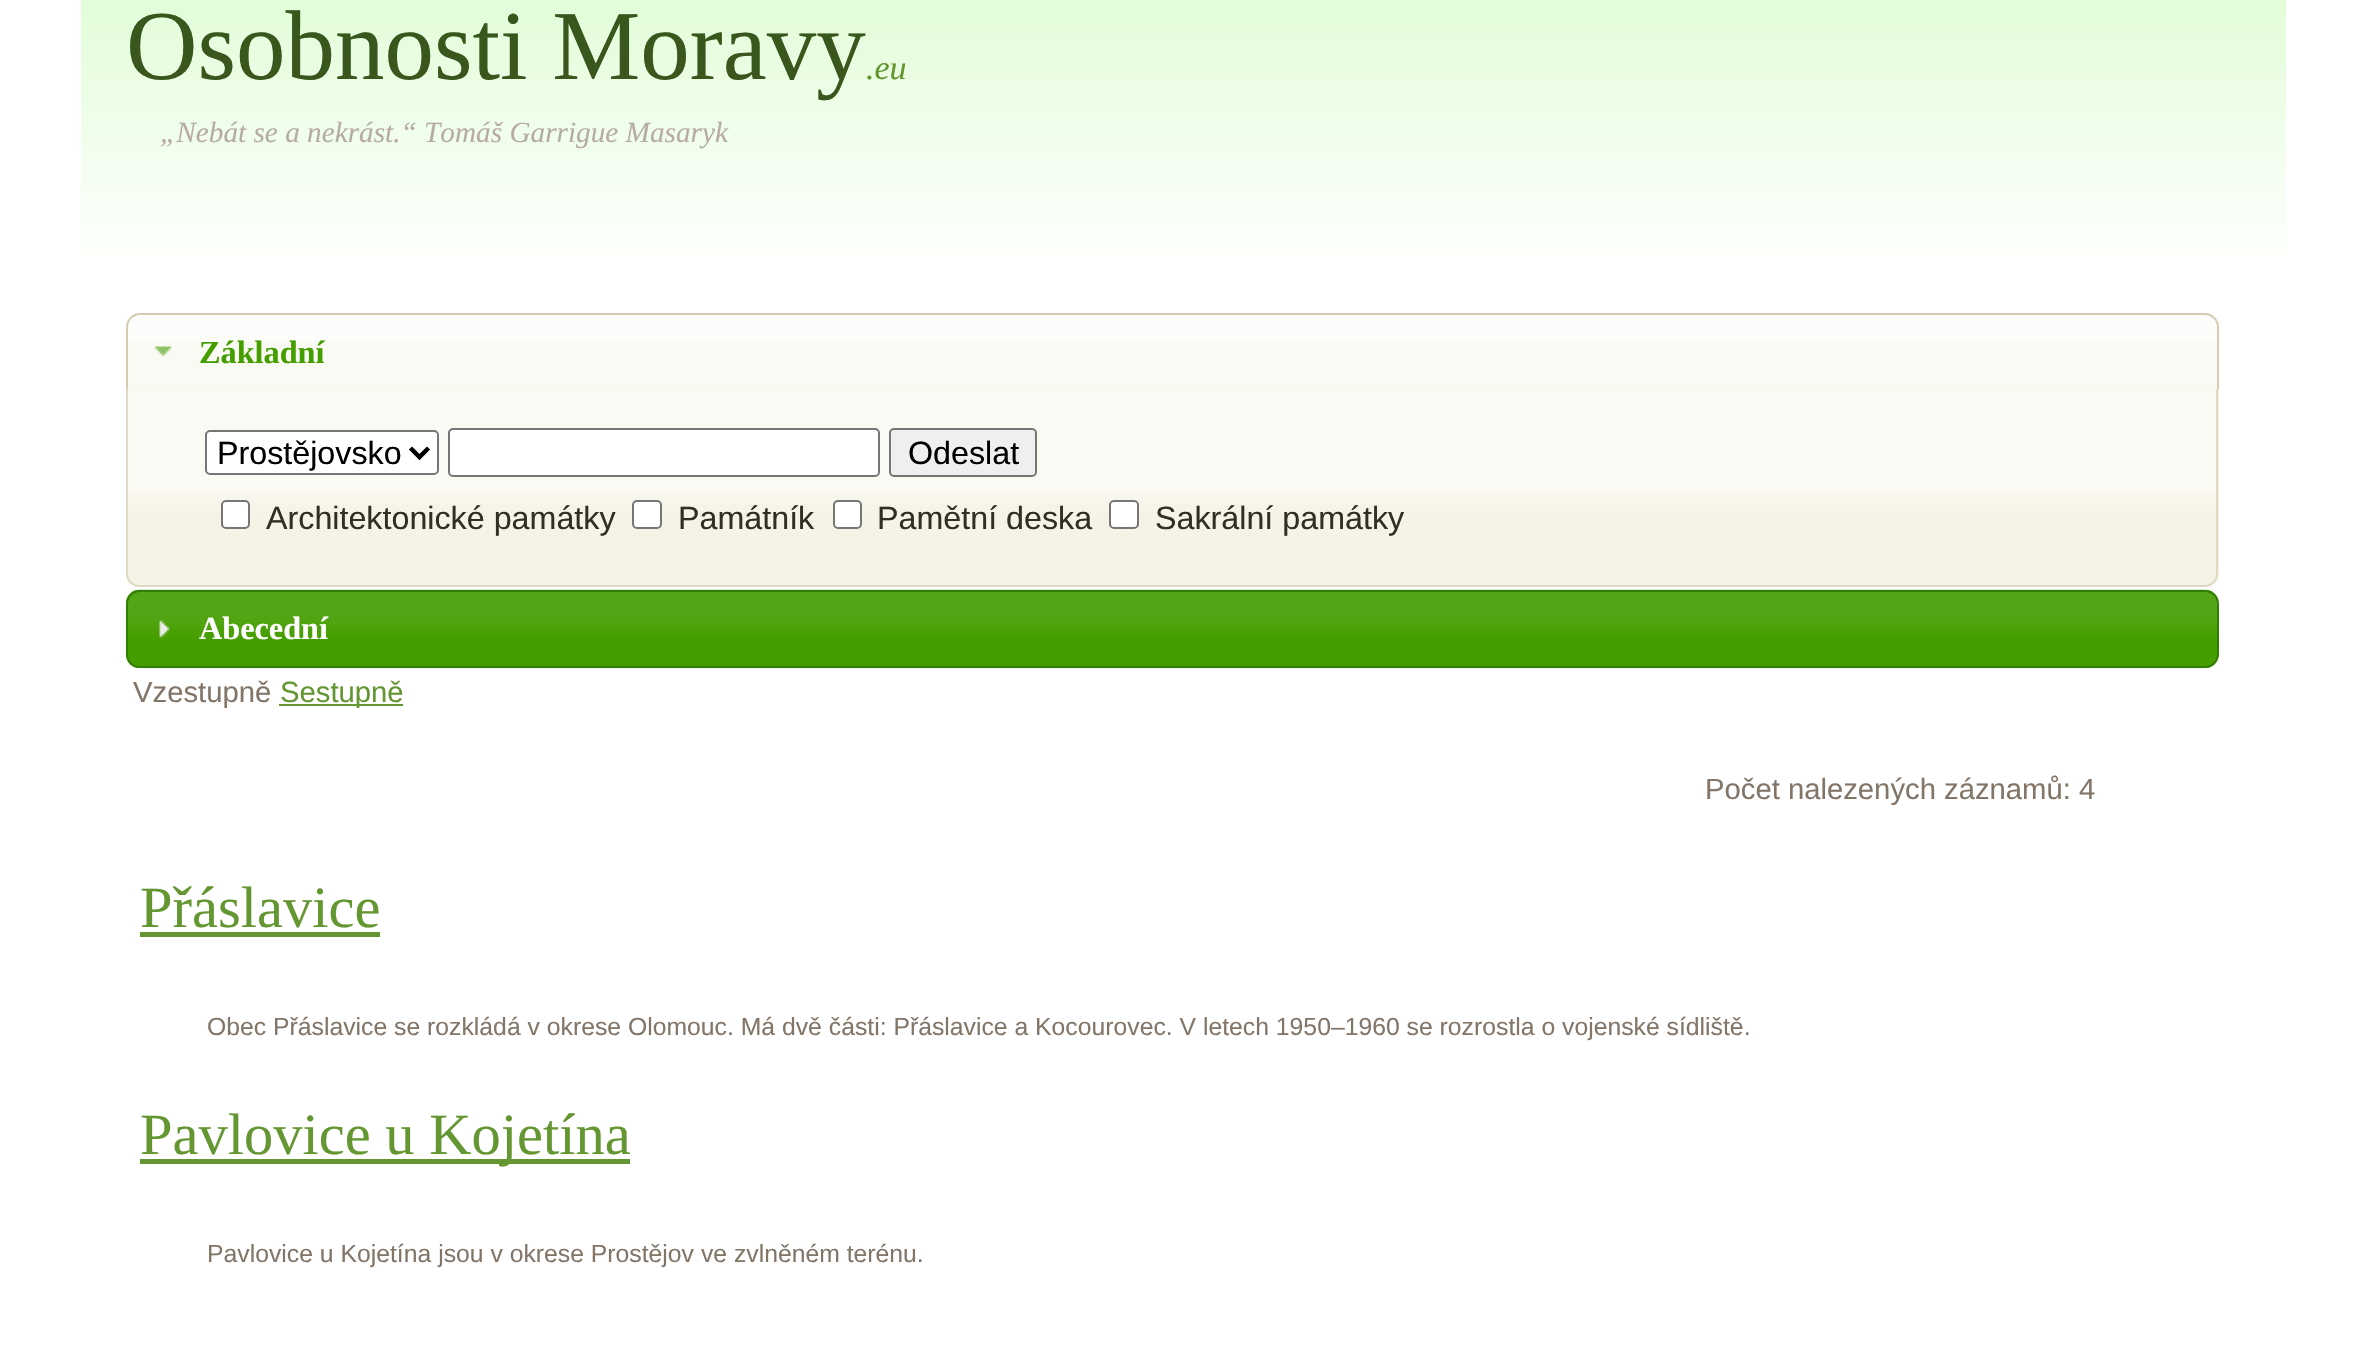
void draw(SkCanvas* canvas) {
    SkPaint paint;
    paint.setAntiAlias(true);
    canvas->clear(0xFFFFFFFF);
    canvas->drawImageRect(SkImages::DeferredFromEncodedData(SkData::MakeFromFileName("img1.png")), SkRect::MakeXYWH(81, 0, 2205, 256), SkSamplingOptions());
    SkFont font1(fontMgr->matchFamilyStyle("Liberation Serif", SkFontStyle::Normal()), 99);
    font1.setSubpixel(true);
    paint.setColor(0xFF39561D);
    canvas->drawString("Osobnosti Moravy", 126, 79, font1, paint);
    SkFont font2(fontMgr->matchFamilyStyle("Liberation Serif", SkFontStyle::Italic()), 34);
    font2.setSubpixel(true);
    paint.setColor(0xFF649632);
    canvas->drawString(".eu", 866, 79, font2, paint);
    SkFont font3(fontMgr->matchFamilyStyle("Liberation Serif", SkFontStyle::Italic()), 29.25f);
    font3.setSubpixel(true);
    paint.setColor(0xFFB6ACA2);
    canvas->drawString("„Nebát se a nekrást.“ Tomáš Garrigue Masaryk", 160, 142, font3, paint);
    paint.setColor(0xFFFAFAF4);
    canvas->drawPath(SkPathBuilder().moveTo(140, 313).lineTo(2205, 313).cubicTo(2212.5f, 313, 2219, 319.5f, 2219, 327).lineTo(2219, 392).lineTo(126, 392).lineTo(126, 327).cubicTo(126, 319.5f, 132.5f, 313, 140, 313).close().detach(), paint);
    canvas->drawImageRect(SkImages::DeferredFromEncodedData(SkData::MakeFromFileName("img2.png")), SkRect::MakeXYWH(126, 313, 2092, 29), SkSamplingOptions());
    paint.setStyle(SkPaint::kStroke_Style);
    paint.setStrokeWidth(2);
    paint.setColor(0xFFD4CCB0);
    canvas->drawPath(SkPathBuilder().moveTo(140, 314).lineTo(2205, 314).cubicTo(2212, 314, 2218, 320, 2218, 327).lineTo(2218, 391).lineTo(127, 391).lineTo(127, 327).cubicTo(127, 320, 133, 314, 140, 314).close().detach(), paint);
    canvas->drawImageRect(SkImages::DeferredFromEncodedData(SkData::MakeFromFileName("img3.png")), SkRect::MakeXYWH(154, 346, 18, 11), SkSamplingOptions());
    SkFont font4(fontMgr->matchFamilyStyle("Liberation Serif", SkFontStyle::Bold()), 32.25f);
    font4.setSubpixel(true);
    paint.setStyle(SkPaint::kFill_Style);
    paint.setColor(0xFF459E00);
    canvas->drawString("Základní", 199, 363, font4, paint);
    paint.setColor(0xFFF5F3E5);
    canvas->drawPath(SkPathBuilder().moveTo(126, 389).lineTo(2219, 389).lineTo(2219, 573).cubicTo(2219, 580.5f, 2212.5f, 587, 2205, 587).lineTo(140, 587).cubicTo(132.5f, 587, 126, 580.5f, 126, 573).close().detach(), paint);
    canvas->drawImageRect(SkImages::DeferredFromEncodedData(SkData::MakeFromFileName("img4.png")), SkRect::MakeXYWH(126, 389, 2092, 198), SkSamplingOptions());
    paint.setColor(0xFFDFD9C3);
    canvas->drawPath(SkPathBuilder(SkPathFillType::kEvenOdd).moveTo(126, 389).lineTo(2218, 389).lineTo(2218, 574).cubicTo(2218, 581, 2212, 587, 2205, 587).lineTo(140, 587).cubicTo(132, 587, 126, 581, 126, 574).close().moveTo(128, 389).lineTo(2216, 389).lineTo(2216, 574).cubicTo(2216, 580, 2211, 585, 2205, 585).lineTo(140, 585).cubicTo(133, 585, 128, 580, 128, 574).close().detach(), paint);
    paint.setColor(0xFFFFFFFF);
    canvas->drawRoundRect(SkRect::MakeXYWH(206, 431, 232, 43), 4, 4, paint);
    paint.setStyle(SkPaint::kStroke_Style);
    paint.setColor(0xFF767676);
    canvas->drawRoundRect(SkRect::MakeXYWH(206, 431, 232, 43), 4, 4, paint);
    paint.setStrokeWidth(4.5f);
    paint.setColor(0xFF000000);
    canvas->drawPath(SkPathBuilder().moveTo(410.5f, 448).lineTo(419.5f, 457).lineTo(428.5f, 448).detach(), paint);
    SkFont font5(fontMgr->matchFamilyStyle("Liberation Sans", SkFontStyle::Normal()), 32.25f);
    font5.setSubpixel(true);
    paint.setStyle(SkPaint::kFill_Style);
    canvas->drawString("Prostějovsko", 217, 464, font5, paint);
    paint.setColor(0xFFFFFFFF);
    canvas->drawRoundRect(SkRect::MakeXYWH(449, 429, 430, 47), 4, 4, paint);
    paint.setStyle(SkPaint::kStroke_Style);
    paint.setStrokeWidth(2);
    paint.setColor(0xFF767676);
    canvas->drawRoundRect(SkRect::MakeXYWH(449, 429, 430, 47), 4, 4, paint);
    paint.setStyle(SkPaint::kFill_Style);
    paint.setColor(0xFFEFEFEF);
    canvas->drawRoundRect(SkRect::MakeXYWH(890, 429, 146, 47), 4, 4, paint);
    paint.setStyle(SkPaint::kStroke_Style);
    paint.setColor(0xFF767676);
    canvas->drawRoundRect(SkRect::MakeXYWH(890, 429, 146, 47), 4, 4, paint);
    paint.setStyle(SkPaint::kFill_Style);
    paint.setColor(0xFF000000);
    canvas->drawString("Odeslat", 908, 464, font5, paint);
    paint.setColor(0xFFFFFFFF);
    canvas->drawRoundRect(SkRect::MakeXYWH(222, 501, 27, 27), 4, 4, paint);
    paint.setStyle(SkPaint::kStroke_Style);
    paint.setColor(0xFF767676);
    canvas->drawRoundRect(SkRect::MakeXYWH(222, 501, 27, 27), 4, 4, paint);
    paint.setStyle(SkPaint::kFill_Style);
    paint.setColor(0xFF312E25);
    canvas->drawString("Architektonické památky", 266, 529, font5, paint);
    paint.setColor(0xFFFFFFFF);
    canvas->drawRoundRect(SkRect::MakeXYWH(633, 501, 28, 27), 4, 4, paint);
    paint.setStyle(SkPaint::kStroke_Style);
    paint.setColor(0xFF767676);
    canvas->drawRoundRect(SkRect::MakeXYWH(633, 501, 28, 27), 4, 4, paint);
    paint.setStyle(SkPaint::kFill_Style);
    paint.setColor(0xFF312E25);
    canvas->drawString("Památník", 678, 529, font5, paint);
    paint.setColor(0xFFFFFFFF);
    canvas->drawRoundRect(SkRect::MakeXYWH(834, 501, 27, 27), 4, 4, paint);
    paint.setStyle(SkPaint::kStroke_Style);
    paint.setColor(0xFF767676);
    canvas->drawRoundRect(SkRect::MakeXYWH(834, 501, 27, 27), 4, 4, paint);
    paint.setStyle(SkPaint::kFill_Style);
    paint.setColor(0xFF312E25);
    canvas->drawString("Pamětní deska", 877, 529, font5, paint);
    paint.setColor(0xFFFFFFFF);
    canvas->drawRoundRect(SkRect::MakeXYWH(1110, 501, 28, 27), 4, 4, paint);
    paint.setStyle(SkPaint::kStroke_Style);
    paint.setColor(0xFF767676);
    canvas->drawRoundRect(SkRect::MakeXYWH(1110, 501, 28, 27), 4, 4, paint);
    paint.setStyle(SkPaint::kFill_Style);
    paint.setColor(0xFF312E25);
    canvas->drawString("Sakrální památky", 1155, 529, font5, paint);
    canvas->drawImageRect(SkImages::DeferredFromEncodedData(SkData::MakeFromFileName("img5.png")), SkRect::MakeXYWH(126, 589, 2093, 80), SkSamplingOptions());
    paint.setStyle(SkPaint::kStroke_Style);
    paint.setColor(0xFF327E04);
    canvas->drawRoundRect(SkRect::MakeXYWH(127, 591, 2091, 76), 13, 13, paint);
    canvas->drawImageRect(SkImages::DeferredFromEncodedData(SkData::MakeFromFileName("img6.png")), SkRect::MakeXYWH(159, 620, 11, 18), SkSamplingOptions());
    paint.setStyle(SkPaint::kFill_Style);
    paint.setColor(0xFFFFFFFF);
    canvas->drawString("Abecední", 199, 639, font4, paint);
    SkFont font6(fontMgr->matchFamilyStyle("Liberation Sans", SkFontStyle::Normal()), 29.25f);
    font6.setSubpixel(true);
    paint.setColor(0xFF837669);
    canvas->drawString("Vzestupně", 133, 702, font6, paint);
    paint.setColor(0xFF649632);
    canvas->drawRect(SkRect::MakeXYWH(279, 704, 124, 2), paint);
    canvas->drawString("Sestupně", 280, 702, font6, paint);
    paint.setColor(0xFF837669);
    canvas->drawString("Počet nalezených záznamů: 4", 1705, 799, font6, paint);
    SkFont font7(fontMgr->matchFamilyStyle("Liberation Serif", SkFontStyle::Normal()), 58.5f);
    font7.setSubpixel(true);
    paint.setColor(0xFF649632);
    canvas->drawString("Přáslavice", 140, 927, font7, paint);
    canvas->drawRect(SkRect::MakeXYWH(140, 932, 240, 5), paint);
    SkFont font8(fontMgr->matchFamilyStyle("Liberation Sans", SkFontStyle::Normal()), 24.75f);
    font8.setSubpixel(true);
    paint.setColor(0xFF837669);
    canvas->drawString("Obec Přáslavice se rozkládá v okrese Olomouc. Má dvě části: Přáslavice a Kocourovec. V letech 1950–1960 se rozrostla o vojenské sídliště.", 207, 1035, font8, paint);
    paint.setColor(0xFF649632);
    canvas->drawRect(SkRect::MakeXYWH(140, 1159, 490, 5), paint);
    canvas->drawString("Pavlovice u Kojetína", 140, 1154, font7, paint);
    paint.setColor(0xFF837669);
    canvas->drawString("Pavlovice u Kojetína jsou v okrese Prostějov ve zvlněném terénu.", 207, 1262, font8, paint);
}
